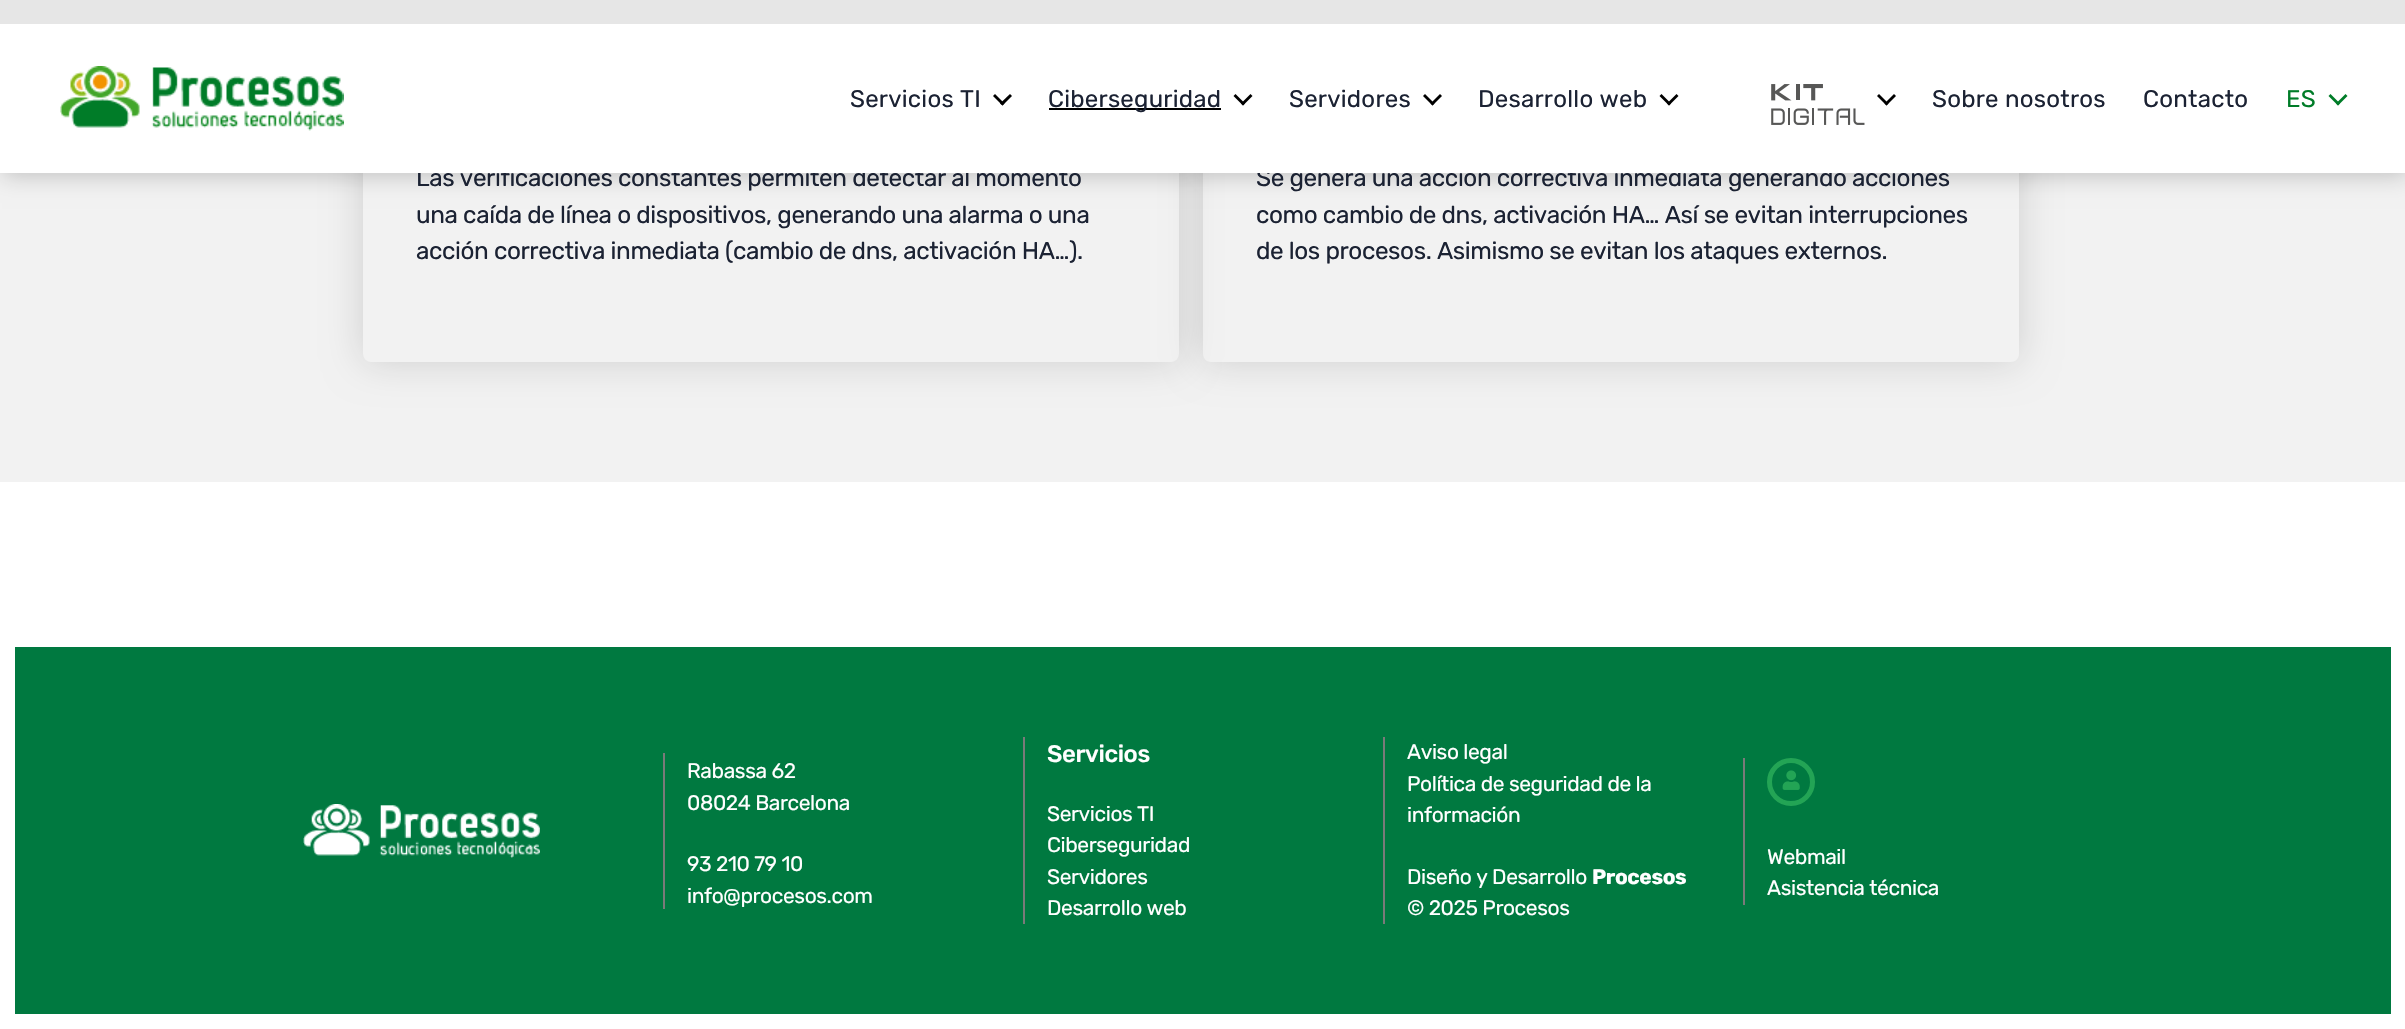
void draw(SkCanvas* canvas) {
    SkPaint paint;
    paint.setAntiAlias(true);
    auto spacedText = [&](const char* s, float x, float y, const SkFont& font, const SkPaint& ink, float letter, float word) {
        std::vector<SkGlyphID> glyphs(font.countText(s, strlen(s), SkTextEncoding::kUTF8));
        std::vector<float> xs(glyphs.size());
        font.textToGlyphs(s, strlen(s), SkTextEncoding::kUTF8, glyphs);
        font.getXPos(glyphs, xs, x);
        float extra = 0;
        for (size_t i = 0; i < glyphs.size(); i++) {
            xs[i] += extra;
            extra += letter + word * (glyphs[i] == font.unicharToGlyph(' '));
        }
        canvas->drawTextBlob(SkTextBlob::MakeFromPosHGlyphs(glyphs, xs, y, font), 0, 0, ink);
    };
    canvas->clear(0xFFFFFFFF);
    paint.setColor(0xFFF2F2F2);
    canvas->drawRect(SkRect::MakeXYWH(0, 173, 2405, 309), paint);
    paint.setColor(0x26000000);
    paint.setMaskFilter(SkMaskFilter::MakeBlur(kNormal_SkBlurStyle, 19));
    canvas->drawRoundRect(SkRect::MakeXYWH(363, -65, 816, 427), 8, 8, paint);
    paint.setMaskFilter(nullptr);
    paint.setColor(0xFFF2F2F2);
    canvas->drawRoundRect(SkRect::MakeXYWH(363, -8, 816, 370), 8, 8, paint);
    paint.setColor(0x33000000);
    paint.setMaskFilter(SkMaskFilter::MakeBlur(kNormal_SkBlurStyle, 11));
    canvas->drawRect(SkRect::MakeXYWH(2, 27, 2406, 149), paint);
    paint.setMaskFilter(nullptr);
    canvas->save();
    canvas->clipPath(SkPathBuilder(SkPathFillType::kEvenOdd).moveTo(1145, 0).lineTo(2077, 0).lineTo(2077, 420).lineTo(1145, 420).close().moveTo(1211, -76).lineTo(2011, -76).cubicTo(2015.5f, -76, 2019, -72.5f, 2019, -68).lineTo(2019, 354).cubicTo(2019, 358.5f, 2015.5f, 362, 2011, 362).lineTo(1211, 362).cubicTo(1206.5f, 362, 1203, 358.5f, 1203, 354).lineTo(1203, -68).cubicTo(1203, -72.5f, 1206.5f, -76, 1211, -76).close().detach(), true);
    paint.setColor(0x26000000);
    paint.setMaskFilter(SkMaskFilter::MakeBlur(kNormal_SkBlurStyle, 19));
    canvas->drawRoundRect(SkRect::MakeXYWH(1203, -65, 816, 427), 8, 8, paint);
    paint.setMaskFilter(nullptr);
    canvas->restore();
    paint.setColor(0xFFE6E6E6);
    canvas->drawRect(SkRect::MakeXYWH(0, 0, 2405, 24), paint);
    SkFont font1(fontMgr->matchFamilyStyle("Rubik", SkFontStyle::Normal()), 24.3f);
    font1.setSubpixel(true);
    paint.setColor(0xFF1B2233);
    spacedText("Las verificaciones constantes permiten detectar al momento", 416, 186, font1, paint, -0.4f, 0);
    spacedText("Se genera una acción correctiva inmediata generando acciones", 1256, 186, font1, paint, -0.4f, 0);
    paint.setColor(0xFFFFFFFF);
    canvas->drawRect(SkRect::MakeXYWH(0, 24, 2405, 149), paint);
    canvas->drawImageRect(SkImages::DeferredFromEncodedData(SkData::MakeFromFileName("img1.png")), SkRect::MakeXYWH(60, 66, 284, 65), SkSamplingOptions());
    SkFont font2(fontMgr->matchFamilyStyle("Rubik", SkFontStyle::Normal()), 24);
    font2.setSubpixel(true);
    paint.setColor(0xFF1B2233);
    spacedText("Servicios TI", 850, 107, font2, paint, 0.25f, 0);
    paint.setColor(0xFF000000);
    canvas->drawPath(SkPathBuilder().moveTo(993, 96).lineTo(995, 94).lineTo(1004.5f, 103.5f).lineTo(1002.5f, 105.5f).close().detach(), paint);
    canvas->drawPath(SkPathBuilder().moveTo(1000, 103.5f).lineTo(1010, 94).lineTo(1012, 96).lineTo(1002.5f, 105.5f).close().detach(), paint);
    canvas->drawRect(SkRect::MakeXYWH(1049, 108, 172, 2), paint);
    paint.setColor(0xFF1B2233);
    spacedText("Ciberseguridad", 1048, 107, font2, paint, 0.25f, 0);
    paint.setColor(0xFF000000);
    canvas->drawPath(SkPathBuilder().moveTo(1233.5f, 96).lineTo(1235.5f, 94).lineTo(1245, 103.5f).lineTo(1243, 105.5f).close().detach(), paint);
    canvas->drawPath(SkPathBuilder().moveTo(1241, 103.5f).lineTo(1250.5f, 94).lineTo(1252.5f, 96).lineTo(1243, 105.5f).close().detach(), paint);
    paint.setColor(0xFF1B2233);
    spacedText("Servidores", 1289, 107, font2, paint, 0.25f, 0);
    paint.setColor(0xFF000000);
    canvas->drawPath(SkPathBuilder().moveTo(1423, 96).lineTo(1425, 94).lineTo(1434.5f, 103.5f).lineTo(1432.5f, 105.5f).close().detach(), paint);
    canvas->drawPath(SkPathBuilder().moveTo(1430.5f, 103.5f).lineTo(1440, 94).lineTo(1442, 96).lineTo(1432.5f, 105.5f).close().detach(), paint);
    paint.setColor(0xFF1B2233);
    spacedText("Desarrollo web", 1478, 107, font2, paint, 0.25f, 0);
    paint.setColor(0xFF000000);
    canvas->drawPath(SkPathBuilder().moveTo(1659.5f, 96).lineTo(1661.5f, 94).lineTo(1671, 103.5f).lineTo(1669, 105.5f).close().detach(), paint);
    canvas->drawPath(SkPathBuilder().moveTo(1667, 103.5f).lineTo(1676.5f, 94).lineTo(1678.5f, 96).lineTo(1669, 105.5f).close().detach(), paint);
    canvas->drawImageRect(SkImages::DeferredFromEncodedData(SkData::MakeFromFileName("img2.png")), SkRect::MakeXYWH(1771, 84, 94, 41), SkSamplingOptions());
    canvas->drawPath(SkPathBuilder().moveTo(1877, 96).lineTo(1879, 94).lineTo(1888.5f, 103.5f).lineTo(1886.5f, 105.5f).close().detach(), paint);
    canvas->drawPath(SkPathBuilder().moveTo(1884.5f, 103.5f).lineTo(1894, 94).lineTo(1896, 96).lineTo(1886.5f, 105.5f).close().detach(), paint);
    paint.setColor(0xFF1B2233);
    spacedText("Sobre nosotros", 1932, 107, font2, paint, 0.25f, 0);
    spacedText("Contacto", 2143, 107, font2, paint, 0.25f, 0);
    paint.setColor(0xFF007C28);
    spacedText("ES", 2286, 107, font2, paint, 0.25f, 0);
    canvas->drawPath(SkPathBuilder().moveTo(2328.5f, 96).lineTo(2330.5f, 94).lineTo(2340, 103.5f).lineTo(2338, 105.5f).close().detach(), paint);
    canvas->drawPath(SkPathBuilder().moveTo(2336, 103.5f).lineTo(2345.5f, 94).lineTo(2347.5f, 96).lineTo(2338, 105.5f).close().detach(), paint);
    paint.setColor(0xFF1B2233);
    spacedText("una caída de línea o dispositivos, generando una alarma o una", 416, 223, font1, paint, -0.4f, 0);
    spacedText("acción correctiva inmediata (cambio de dns, activación HA…).", 416, 259, font1, paint, -0.4f, 0);
    spacedText("como cambio de dns, activación HA… Así se evitan interrupciones", 1256, 223, font1, paint, -0.4f, 0);
    spacedText("de los procesos. Asimismo se evitan los ataques externos.", 1256, 259, font1, paint, -0.4f, 0);
    paint.setColor(0xFF007940);
    canvas->drawRect(SkRect::MakeXYWH(15, 647, 2376, 367), paint);
    canvas->drawImageRect(SkImages::DeferredFromEncodedData(SkData::MakeFromFileName("img3.png")), SkRect::MakeXYWH(303, 804, 237, 54), SkSamplingOptions());
    paint.setColor(0xFF7A7A7A);
    canvas->drawRect(SkRect::MakeXYWH(663, 753, 2, 156), paint);
    SkFont font3(fontMgr->matchFamilyStyle("Rubik", SkFontStyle::Normal()), 21);
    font3.setSubpixel(true);
    paint.setColor(0xFFFFFFFF);
    spacedText("Rabassa 62", 687, 778, font3, paint, -0.4f, 0);
    spacedText("08024 Barcelona", 687, 810, font3, paint, -0.4f, 0);
    spacedText("93 210 79 10", 687, 871, font3, paint, -0.4f, 0);
    spacedText("info@procesos.com", 687, 903, font3, paint, -0.4f, 0);
    paint.setColor(0xFF7A7A7A);
    canvas->drawRect(SkRect::MakeXYWH(1023, 737, 2, 187), paint);
    SkFont font4(fontMgr->matchFamilyStyle("Rubik", SkFontStyle(500, SkFontStyle::kNormal_Width, SkFontStyle::kUpright_Slant)), 24);
    font4.setSubpixel(true);
    paint.setColor(0xFFFFFFFF);
    spacedText("Servicios", 1047, 762, font4, paint, -0.4f, 0);
    spacedText("Servicios TI", 1047, 821, font3, paint, -0.4f, 0);
    spacedText("Ciberseguridad", 1047, 852, font3, paint, -0.4f, 0);
    spacedText("Servidores", 1047, 884, font3, paint, -0.4f, 0);
    spacedText("Desarrollo web", 1047, 915, font3, paint, -0.4f, 0);
    paint.setColor(0xFF7A7A7A);
    canvas->drawRect(SkRect::MakeXYWH(1383, 737, 2, 187), paint);
    paint.setColor(0xFFFFFFFF);
    spacedText("Aviso legal", 1407, 759, font3, paint, -0.4f, 0);
    spacedText("Política de seguridad de la", 1407, 791, font3, paint, -0.4f, 0);
    spacedText("información", 1407, 822, font3, paint, -0.4f, 0);
    spacedText("Diseño y Desarrollo", 1407, 884, font3, paint, -0.4f, 0);
    SkFont font5(fontMgr->matchFamilyStyle("Rubik", SkFontStyle::Bold()), 21);
    font5.setSubpixel(true);
    spacedText("Procesos", 1592, 884, font5, paint, -0.4f, 0);
    spacedText("© 2025 Procesos", 1407, 915, font3, paint, -0.4f, 0);
    paint.setColor(0xFF7A7A7A);
    canvas->drawRect(SkRect::MakeXYWH(1743, 758, 2, 147), paint);
    paint.setStyle(SkPaint::kStroke_Style);
    paint.setStrokeWidth(5);
    paint.setColor(0xFF23A455);
    canvas->drawCircle(1791, 782, 21.5f, paint);
    canvas->drawImageRect(SkImages::DeferredFromEncodedData(SkData::MakeFromFileName("img4.png")), SkRect::MakeXYWH(1782, 770, 18, 20), SkSamplingOptions());
    paint.setStyle(SkPaint::kFill_Style);
    paint.setColor(0xFFFFFFFF);
    spacedText("Webmail", 1767, 864, font3, paint, -0.4f, 0);
    spacedText("Asistencia técnica", 1767, 895, font3, paint, -0.4f, 0);
}
